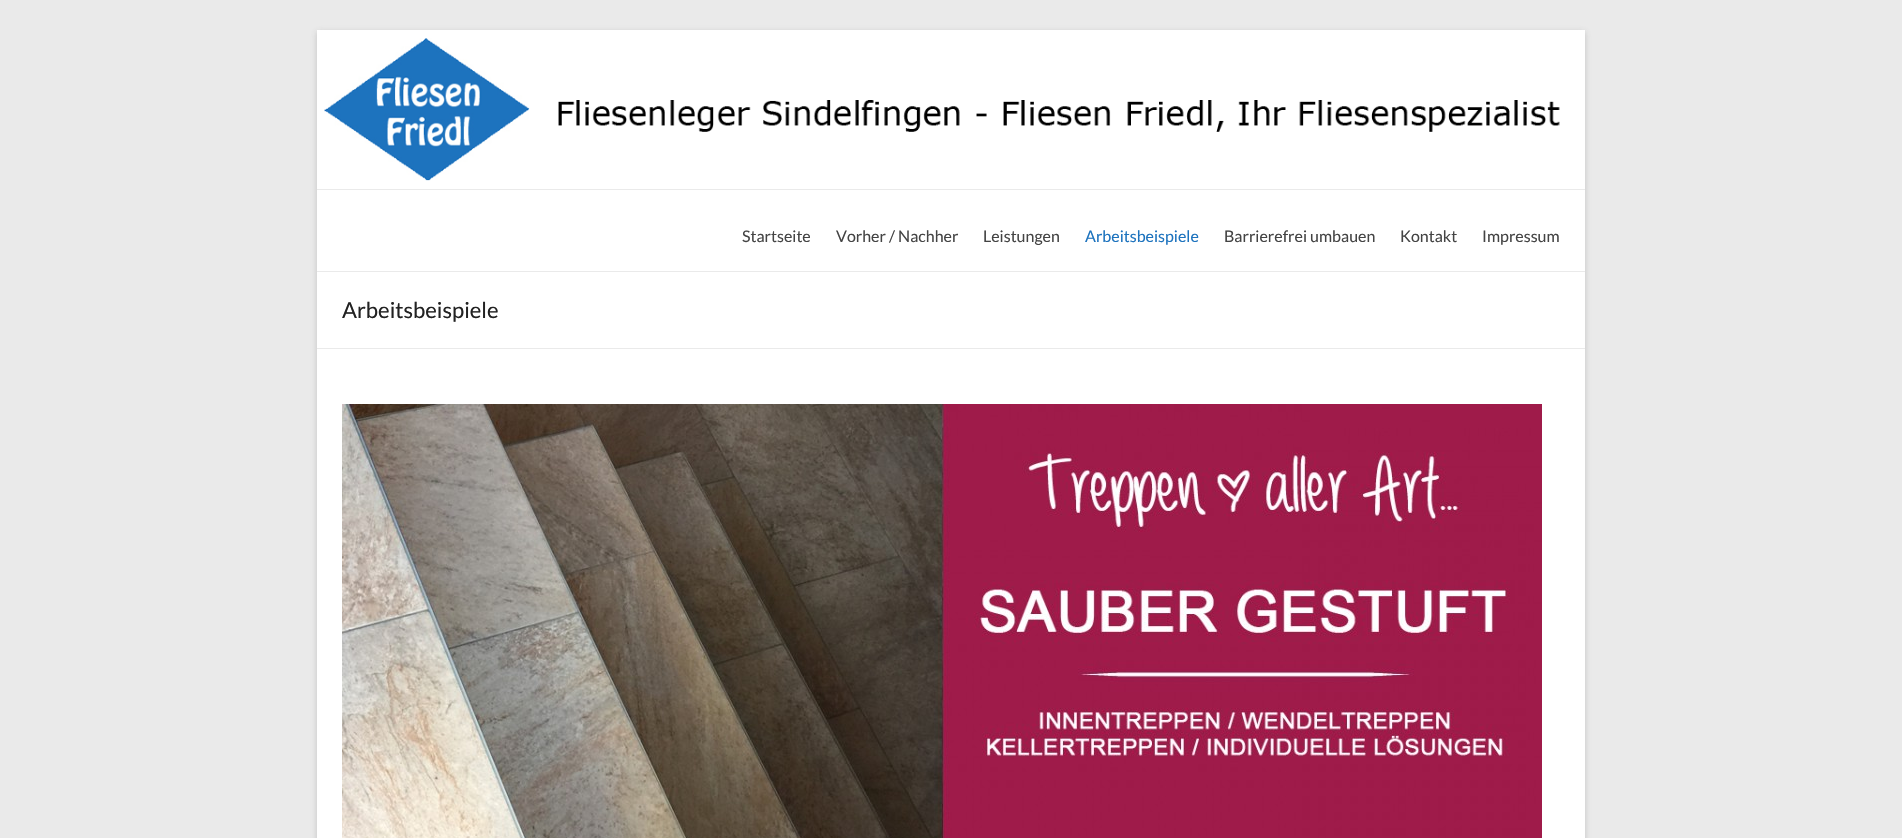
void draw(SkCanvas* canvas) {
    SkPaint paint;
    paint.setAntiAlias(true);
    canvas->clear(0xFFEAEAEA);
    paint.setColor(0x4D646464);
    paint.setMaskFilter(SkMaskFilter::MakeBlur(kNormal_SkBlurStyle, 3));
    canvas->drawRect(SkRect::MakeXYWH(317, 32, 1268, 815), paint);
    paint.setMaskFilter(nullptr);
    paint.setColor(0xFFFFFFFF);
    canvas->drawRect(SkRect::MakeXYWH(317, 30, 1268, 808), paint);
    canvas->drawImageRect(SkImages::DeferredFromEncodedData(SkData::MakeFromFileName("img1.png")), SkRect::MakeXYWH(324, 38, 1236, 143), SkSamplingOptions());
    paint.setColor(0xFFEAEAEA);
    canvas->drawRect(SkRect::MakeXYWH(317, 189, 1268, 1), paint);
    canvas->drawRect(SkRect::MakeXYWH(317, 271, 1268, 1), paint);
    SkFont font1(fontMgr->matchFamilyStyle("Lato", SkFontStyle::Normal()), 16);
    font1.setSubpixel(true);
    paint.setColor(0xFF444444);
    canvas->drawString("Startseite", 742, 242, font1, paint);
    canvas->drawString("Vorher / Nachher", 836, 242, font1, paint);
    canvas->drawString("Leistungen", 983, 242, font1, paint);
    paint.setColor(0xFF1D73BE);
    canvas->drawString("Arbeitsbeispiele", 1085, 242, font1, paint);
    paint.setColor(0xFF444444);
    canvas->drawString("Barrierefrei umbauen", 1224, 242, font1, paint);
    canvas->drawString("Kontakt", 1400, 242, font1, paint);
    canvas->drawString("Impressum", 1482, 242, font1, paint);
    paint.setColor(0xFFEAEAEA);
    canvas->drawRect(SkRect::MakeXYWH(317, 348, 1268, 1), paint);
    SkFont font2(fontMgr->matchFamilyStyle("Lato", SkFontStyle::Normal()), 22);
    font2.setSubpixel(true);
    paint.setColor(0xFF222222);
    canvas->drawString("Arbeitsbeispiele", 342, 318, font2, paint);
    canvas->drawImageRect(SkImages::DeferredFromEncodedData(SkData::MakeFromFileName("img2.png")), SkRect::MakeXYWH(342, 404, 1200, 434), SkSamplingOptions());
}
